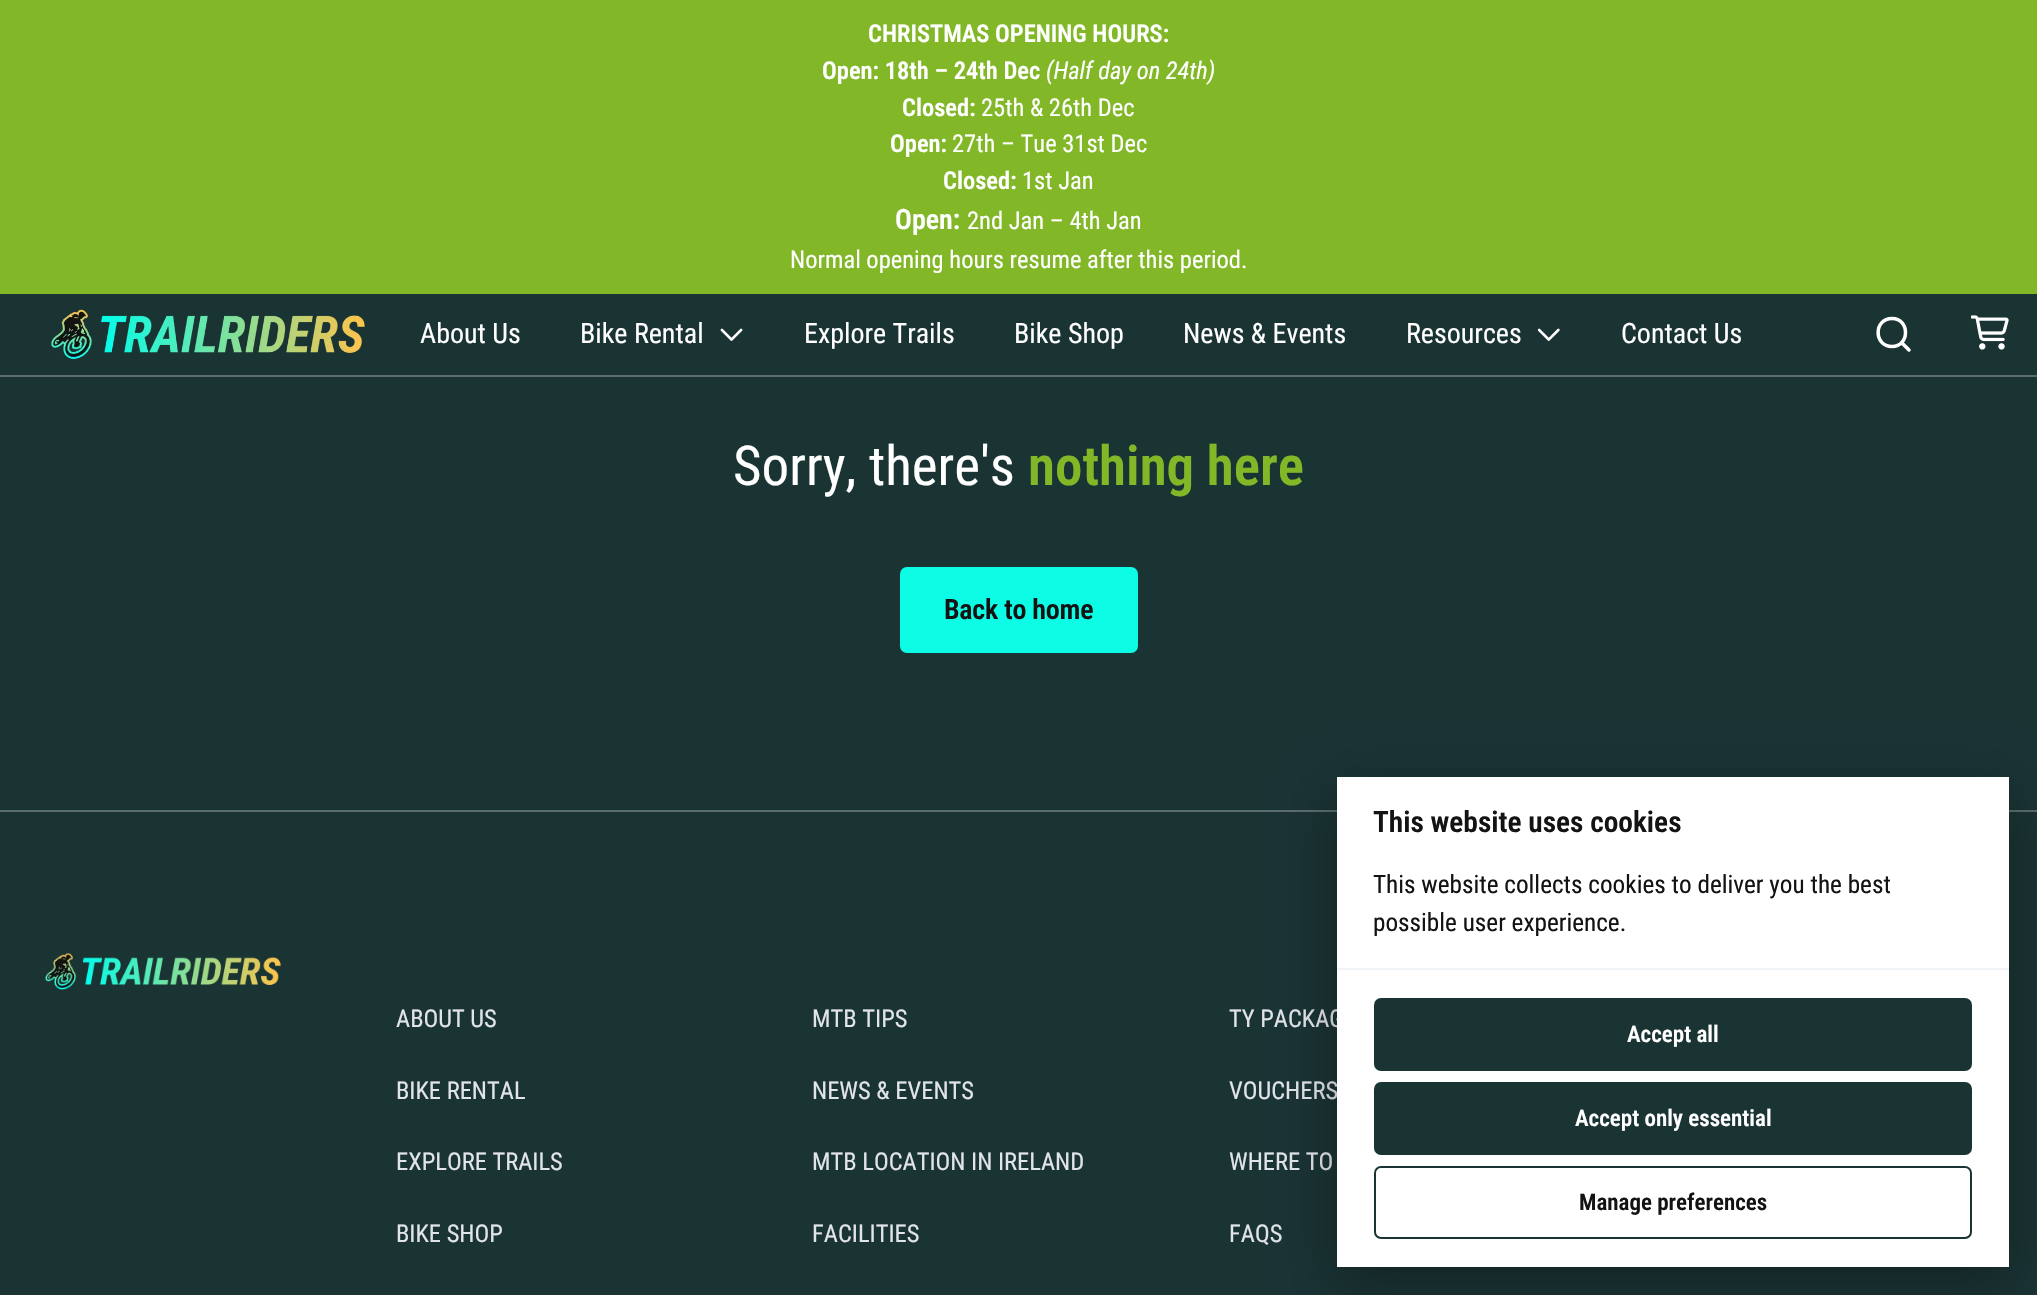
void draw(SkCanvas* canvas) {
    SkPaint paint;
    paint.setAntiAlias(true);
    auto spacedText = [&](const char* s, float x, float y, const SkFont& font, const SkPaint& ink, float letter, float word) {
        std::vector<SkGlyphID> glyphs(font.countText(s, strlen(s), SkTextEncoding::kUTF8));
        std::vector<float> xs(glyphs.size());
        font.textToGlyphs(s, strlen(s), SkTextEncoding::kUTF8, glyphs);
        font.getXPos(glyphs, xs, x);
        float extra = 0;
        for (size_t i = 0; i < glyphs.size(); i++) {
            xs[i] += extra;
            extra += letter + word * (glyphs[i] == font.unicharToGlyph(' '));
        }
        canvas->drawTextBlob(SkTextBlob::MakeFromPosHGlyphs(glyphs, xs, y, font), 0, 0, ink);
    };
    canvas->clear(0xFF1A3333);
    paint.setColor(0xFF82B828);
    canvas->drawRect(SkRect::MakeXYWH(0, 0, 2037, 294), paint);
    SkFont font1(fontMgr->matchFamilyStyle("Roboto Condensed", SkFontStyle(600, SkFontStyle::kNormal_Width, SkFontStyle::kUpright_Slant)), 24.5f);
    font1.setSubpixel(true);
    paint.setColor(0xFFFFFFFF);
    canvas->drawString("CHRISTMAS OPENING HOURS:", 868, 42, font1, paint);
    canvas->drawString("Open: 18th – 24th Dec", 822, 79, font1, paint);
    SkFont font2(fontMgr->matchFamilyStyle("Roboto Condensed", SkFontStyle::Italic()), 24.5f);
    font2.setSubpixel(true);
    canvas->drawString("(Half day on 24th)", 1046, 79, font2, paint);
    canvas->drawString("Closed:", 902, 116, font1, paint);
    SkFont font3(fontMgr->matchFamilyStyle("Roboto Condensed", SkFontStyle::Normal()), 24.5f);
    font3.setSubpixel(true);
    canvas->drawString("25th & 26th Dec", 981, 116, font3, paint);
    canvas->drawString("Open:", 890, 152, font1, paint);
    canvas->drawString("27th – Tue 31st Dec", 952, 152, font3, paint);
    canvas->drawString("Closed:", 943, 189, font1, paint);
    canvas->drawString("1st Jan", 1022, 189, font3, paint);
    SkFont font4(fontMgr->matchFamilyStyle("Roboto Condensed", SkFontStyle(600, SkFontStyle::kNormal_Width, SkFontStyle::kUpright_Slant)), 28);
    font4.setSubpixel(true);
    canvas->drawString("Open:", 895, 229, font4, paint);
    canvas->drawString("2nd Jan – 4th Jan", 967, 229, font3, paint);
    canvas->drawString("Normal opening hours resume after this period.", 790, 268, font3, paint);
    paint.setColor(0x47FFFFFF);
    canvas->drawRect(SkRect::MakeXYWH(0, 375, 2037, 2), paint);
    canvas->drawImageRect(SkImages::DeferredFromEncodedData(SkData::MakeFromFileName("img1.png")), SkRect::MakeXYWH(51, 309, 314, 51), SkSamplingOptions());
    SkFont font5(fontMgr->matchFamilyStyle("Roboto Condensed", SkFontStyle::Normal()), 28);
    font5.setSubpixel(true);
    paint.setColor(0xFFFFFFFF);
    canvas->drawString("About Us", 420, 343, font5, paint);
    canvas->drawString("Bike Rental", 580, 343, font5, paint);
    canvas->drawImageRect(SkImages::DeferredFromEncodedData(SkData::MakeFromFileName("img2.png")), SkRect::MakeXYWH(720, 328, 23, 13), SkSamplingOptions());
    canvas->drawString("Explore Trails", 804, 343, font5, paint);
    canvas->drawString("Bike Shop", 1014, 343, font5, paint);
    canvas->drawString("News & Events", 1183, 343, font5, paint);
    canvas->drawString("Resources", 1406, 343, font5, paint);
    canvas->drawImageRect(SkImages::DeferredFromEncodedData(SkData::MakeFromFileName("img3.png")), SkRect::MakeXYWH(1537, 328, 23, 13), SkSamplingOptions());
    canvas->drawString("Contact Us", 1621, 343, font5, paint);
    paint.setStyle(SkPaint::kStroke_Style);
    paint.setStrokeWidth(3.5f);
    paint.setStrokeCap(SkPaint::kRound_Cap);
    paint.setStrokeJoin(SkPaint::kRound_Join);
    canvas->drawPath(SkPathBuilder().moveTo(1892, 346.5f).cubicTo(1910, 346.5f, 1910, 318.5f, 1892, 318.5f).cubicTo(1873.5f, 318.5f, 1873.5f, 346.5f, 1892, 346.5f).close().moveTo(1909, 350).lineTo(1901.5f, 342.5f).detach(), paint);
    canvas->drawImageRect(SkImages::DeferredFromEncodedData(SkData::MakeFromFileName("img4.png")), SkRect::MakeXYWH(1971, 315, 38, 35), SkSamplingOptions());
    SkFont font6(fontMgr->matchFamilyStyle("Roboto Condensed", SkFontStyle::Normal()), 55);
    font6.setSubpixel(true);
    paint.setStyle(SkPaint::kFill_Style);
    canvas->drawString("Sorry, there's", 733, 485, font6, paint);
    SkFont font7(fontMgr->matchFamilyStyle("Roboto Condensed", SkFontStyle(600, SkFontStyle::kNormal_Width, SkFontStyle::kUpright_Slant)), 55);
    font7.setSubpixel(true);
    paint.setColor(0xFF82B828);
    canvas->drawString("nothing here", 1028, 485, font7, paint);
    paint.setColor(0xFF0CFCE6);
    canvas->drawRoundRect(SkRect::MakeXYWH(901, 568, 236, 84), 6, 6, paint);
    paint.setStyle(SkPaint::kStroke_Style);
    paint.setStrokeWidth(2);
    paint.setStrokeCap(SkPaint::kButt_Cap);
    paint.setStrokeJoin(SkPaint::kMiter_Join);
    canvas->drawRoundRect(SkRect::MakeXYWH(901, 568, 236, 84), 6, 6, paint);
    paint.setStyle(SkPaint::kFill_Style);
    paint.setColor(0xFF131314);
    spacedText("Back to home", 944, 619, font4, paint, -0.25f, 0);
    paint.setColor(0xFF5A6C6C);
    canvas->drawRect(SkRect::MakeXYWH(0, 810, 2037, 2), paint);
    canvas->drawImageRect(SkImages::DeferredFromEncodedData(SkData::MakeFromFileName("img5.png")), SkRect::MakeXYWH(45, 953, 236, 37), SkSamplingOptions());
    paint.setColor(0xFFE1E4E8);
    canvas->drawString("ABOUT US", 396, 1027, font3, paint);
    canvas->drawString("BIKE RENTAL", 396, 1099, font3, paint);
    canvas->drawString("EXPLORE TRAILS", 396, 1170, font3, paint);
    canvas->drawString("BIKE SHOP", 396, 1242, font3, paint);
    canvas->drawString("MTB TIPS", 812, 1027, font3, paint);
    canvas->drawString("NEWS & EVENTS", 812, 1099, font3, paint);
    canvas->drawString("MTB LOCATION IN IRELAND", 812, 1170, font3, paint);
    canvas->drawString("FACILITIES", 812, 1242, font3, paint);
    canvas->drawString("TY PACKAG", 1229, 1027, font3, paint);
    canvas->drawString("VOUCHERS", 1229, 1099, font3, paint);
    canvas->drawString("WHERE TO", 1229, 1170, font3, paint);
    canvas->drawString("FAQS", 1229, 1242, font3, paint);
    paint.setColor(0x4D000002);
    paint.setMaskFilter(SkMaskFilter::MakeBlur(kNormal_SkBlurStyle, 26));
    canvas->drawRect(SkRect::MakeXYWH(1337, 795, 672, 490), paint);
    paint.setMaskFilter(nullptr);
    paint.setColor(0xFFFFFFFF);
    canvas->drawRect(SkRect::MakeXYWH(1337, 777, 672, 490), paint);
    SkFont font8(fontMgr->matchFamilyStyle("Roboto Condensed", SkFontStyle(600, SkFontStyle::kNormal_Width, SkFontStyle::kUpright_Slant)), 29.4f);
    font8.setSubpixel(true);
    paint.setColor(0xFF131314);
    canvas->drawString("This website uses cookies", 1373, 832, font8, paint);
    SkFont font9(fontMgr->matchFamilyStyle("Roboto Condensed", SkFontStyle::Normal()), 25.2f);
    font9.setSubpixel(true);
    canvas->drawString("This website collects cookies to deliver you the best", 1373, 893, font9, paint);
    canvas->drawString("possible user experience.", 1373, 931, font9, paint);
    paint.setColor(0xFFF0F4F7);
    canvas->drawRect(SkRect::MakeXYWH(1337, 968, 672, 2), paint);
    paint.setColor(0xFF1A3333);
    canvas->drawRoundRect(SkRect::MakeXYWH(1374, 998, 598, 73), 7, 7, paint);
    SkFont font10(fontMgr->matchFamilyStyle("Roboto Condensed", SkFontStyle(600, SkFontStyle::kNormal_Width, SkFontStyle::kUpright_Slant)), 23);
    font10.setSubpixel(true);
    paint.setColor(0xFFFFFFFF);
    canvas->drawString("Accept all", 1627, 1042, font10, paint);
    paint.setColor(0xFF1A3333);
    canvas->drawRoundRect(SkRect::MakeXYWH(1374, 1082, 598, 73), 7, 7, paint);
    paint.setColor(0xFFFFFFFF);
    canvas->drawString("Accept only essential", 1575, 1126, font10, paint);
    paint.setStyle(SkPaint::kStroke_Style);
    paint.setColor(0xFF1A3333);
    canvas->drawRoundRect(SkRect::MakeXYWH(1375, 1167, 596, 71), 6, 6, paint);
    paint.setStyle(SkPaint::kFill_Style);
    paint.setColor(0xFF131314);
    canvas->drawString("Manage preferences", 1579, 1210, font10, paint);
}
